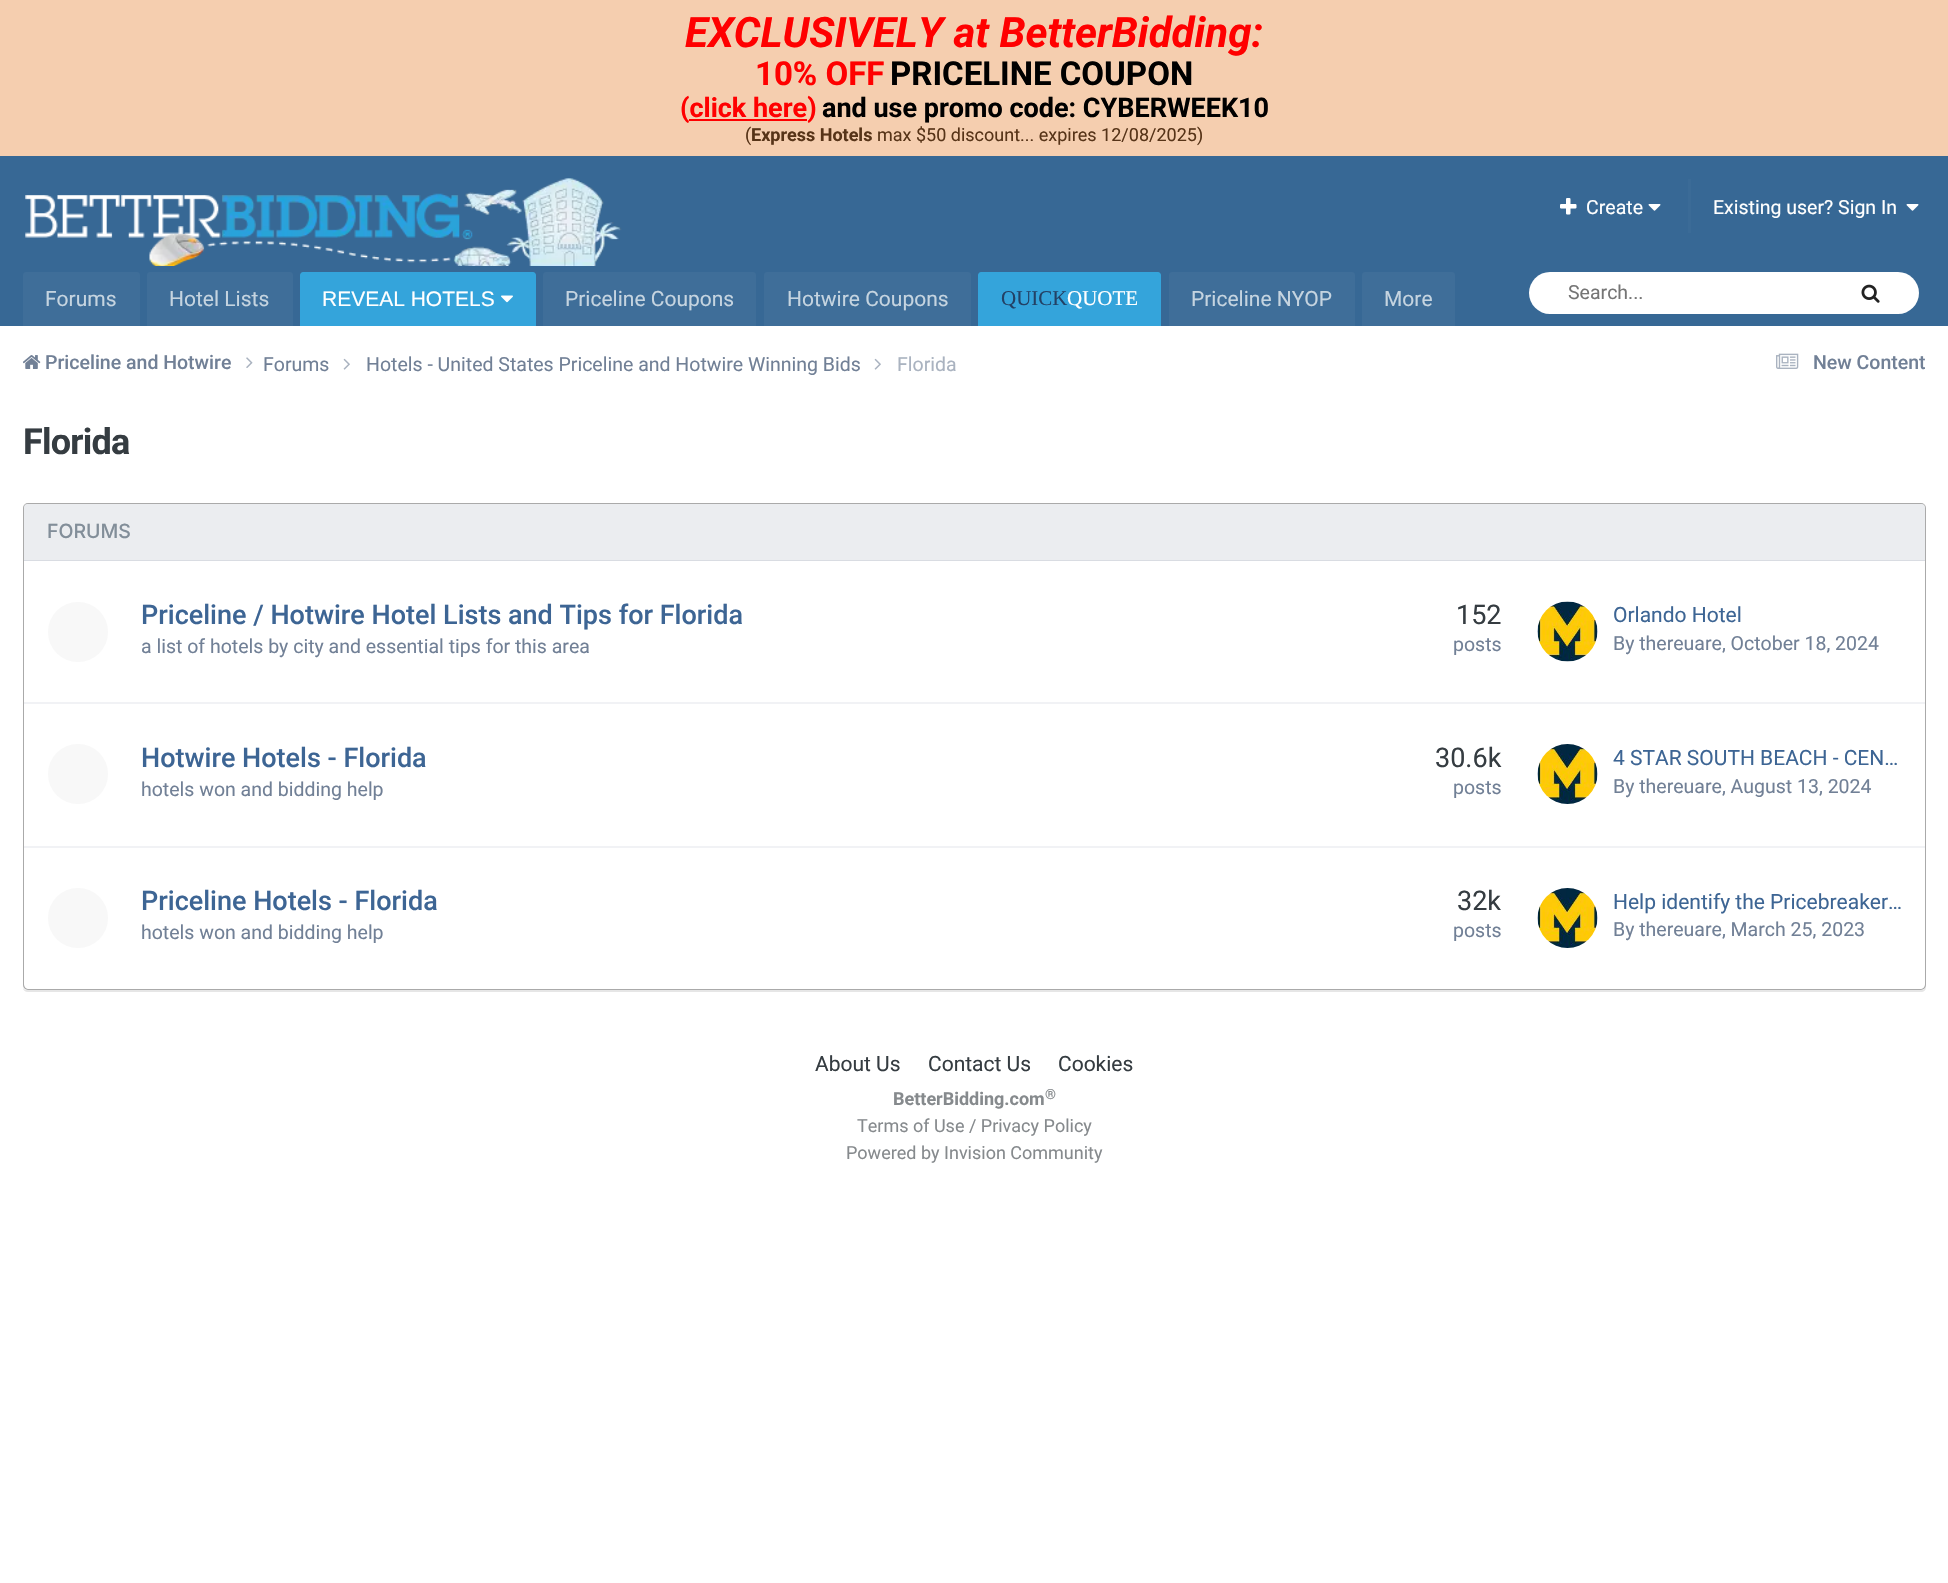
void draw(SkCanvas* canvas) {
    SkPaint paint;
    paint.setAntiAlias(true);
    auto spacedText = [&](const char* s, float x, float y, const SkFont& font, const SkPaint& ink, float letter, float word) {
        std::vector<SkGlyphID> glyphs(font.countText(s, strlen(s), SkTextEncoding::kUTF8));
        std::vector<float> xs(glyphs.size());
        font.textToGlyphs(s, strlen(s), SkTextEncoding::kUTF8, glyphs);
        font.getXPos(glyphs, xs, x);
        float extra = 0;
        for (size_t i = 0; i < glyphs.size(); i++) {
            xs[i] += extra;
            extra += letter + word * (glyphs[i] == font.unicharToGlyph(' '));
        }
        canvas->drawTextBlob(SkTextBlob::MakeFromPosHGlyphs(glyphs, xs, y, font), 0, 0, ink);
    };
    canvas->clear(0xFFFFFFFF);
    paint.setColor(0xFFF5CEAF);
    canvas->drawRect(SkRect::MakeXYWH(0, 0, 1948, 156), paint);
    SkFont font1(fontMgr->matchFamilyStyle("Roboto", SkFontStyle::BoldItalic()), 42);
    font1.setSubpixel(true);
    paint.setColor(0xFFFF0000);
    canvas->drawString("EXCLUSIVELY at BetterBidding:", 685, 47, font1, paint);
    SkFont font2(fontMgr->matchFamilyStyle("Roboto", SkFontStyle::Bold()), 33);
    font2.setSubpixel(true);
    canvas->drawString("10% OFF", 755, 85, font2, paint);
    paint.setColor(0xFF000000);
    canvas->drawString("PRICELINE COUPON", 890, 85, font2, paint);
    SkFont font3(fontMgr->matchFamilyStyle("Roboto", SkFontStyle::Bold()), 27);
    font3.setSubpixel(true);
    paint.setColor(0xFFFF0000);
    canvas->drawString("(click here)", 680, 117, font3, paint);
    canvas->drawRect(SkRect::MakeXYWH(689, 119, 118, 2), paint);
    paint.setColor(0xFF000000);
    canvas->drawString("and use promo code: CYBERWEEK10", 822, 117, font3, paint);
    SkFont font4(fontMgr->matchFamilyStyle("Roboto", SkFontStyle::Normal()), 18);
    font4.setSubpixel(true);
    paint.setColor(0xFF573418);
    canvas->drawString("(", 745, 141, font4, paint);
    SkFont font5(fontMgr->matchFamilyStyle("Roboto", SkFontStyle::Bold()), 18);
    font5.setSubpixel(true);
    canvas->drawString("Express Hotels", 751, 141, font5, paint);
    canvas->drawString("max $50 discount... expires 12/08/2025)", 877, 141, font4, paint);
    paint.setColor(0xFF376895);
    canvas->drawRect(SkRect::MakeXYWH(0, 156, 1948, 170), paint);
    canvas->drawImageRect(SkImages::DeferredFromEncodedData(SkData::MakeFromFileName("img1.png")), SkRect::MakeXYWH(25, 178, 597, 88), SkSamplingOptions());
    canvas->drawImageRect(SkImages::DeferredFromEncodedData(SkData::MakeFromFileName("img2.png")), SkRect::MakeXYWH(1560, 198, 17, 17), SkSamplingOptions());
    SkFont font6(fontMgr->matchFamilyStyle("Roboto", SkFontStyle::Normal()), 19.5f);
    font6.setSubpixel(true);
    paint.setColor(0xFFFFFFFF);
    canvas->drawString("Create", 1586, 214, font6, paint);
    canvas->drawImageRect(SkImages::DeferredFromEncodedData(SkData::MakeFromFileName("img3.png")), SkRect::MakeXYWH(1648, 204, 13, 7), SkSamplingOptions());
    paint.setColor(0xFF3B6B97);
    canvas->drawRect(SkRect::MakeXYWH(1688, 179, 3, 54), paint);
    paint.setColor(0xFFFFFFFF);
    canvas->drawString("Existing user? Sign In", 1713, 214, font6, paint);
    canvas->drawImageRect(SkImages::DeferredFromEncodedData(SkData::MakeFromFileName("img3.png")), SkRect::MakeXYWH(1906, 204, 13, 7), SkSamplingOptions());
    paint.setColor(0xFF3F6E99);
    canvas->drawPath(SkPathBuilder().moveTo(26, 272).lineTo(137, 272).cubicTo(138.5f, 272, 140, 273.5f, 140, 275).lineTo(140, 326).lineTo(23, 326).lineTo(23, 275).cubicTo(23, 273.5f, 24.5f, 272, 26, 272).close().detach(), paint);
    SkFont font7(fontMgr->matchFamilyStyle("Roboto", SkFontStyle::Normal()), 21);
    font7.setSubpixel(true);
    paint.setColor(0xFFC5D4E0);
    canvas->drawString("Forums", 45, 306, font7, paint);
    paint.setColor(0xFF3F6E99);
    canvas->drawPath(SkPathBuilder().moveTo(150, 272).lineTo(290, 272).cubicTo(291.5f, 272, 293, 273.5f, 293, 275).lineTo(293, 326).lineTo(147, 326).lineTo(147, 275).cubicTo(147, 273.5f, 148.5f, 272, 150, 272).close().detach(), paint);
    paint.setColor(0xFFC5D4E0);
    canvas->drawString("Hotel Lists", 169, 306, font7, paint);
    paint.setColor(0xFF34A4DB);
    canvas->drawPath(SkPathBuilder().moveTo(303, 272).lineTo(533, 272).cubicTo(534.5f, 272, 536, 273.5f, 536, 275).lineTo(536, 326).lineTo(300, 326).lineTo(300, 275).cubicTo(300, 273.5f, 301.5f, 272, 303, 272).close().detach(), paint);
    SkFont font8(fontMgr->matchFamilyStyle("Liberation Sans", SkFontStyle::Normal()), 21);
    font8.setSubpixel(true);
    paint.setColor(0xFFFFFFFF);
    canvas->drawString("REVEAL HOTELS", 322, 306, font8, paint);
    canvas->drawImageRect(SkImages::DeferredFromEncodedData(SkData::MakeFromFileName("img4.png")), SkRect::MakeXYWH(501, 295, 12, 8), SkSamplingOptions());
    paint.setColor(0xFF3F6E99);
    canvas->drawPath(SkPathBuilder().moveTo(546, 272).lineTo(753, 272).cubicTo(754.5f, 272, 756, 273.5f, 756, 275).lineTo(756, 326).lineTo(543, 326).lineTo(543, 275).cubicTo(543, 273.5f, 544.5f, 272, 546, 272).close().detach(), paint);
    paint.setColor(0xFFC5D4E0);
    canvas->drawString("Priceline Coupons", 565, 306, font7, paint);
    paint.setColor(0xFF3F6E99);
    canvas->drawPath(SkPathBuilder().moveTo(767, 272).lineTo(968, 272).cubicTo(969.5f, 272, 971, 273.5f, 971, 275).lineTo(971, 326).lineTo(764, 326).lineTo(764, 275).cubicTo(764, 273.5f, 765.5f, 272, 767, 272).close().detach(), paint);
    paint.setColor(0xFFC5D4E0);
    canvas->drawString("Hotwire Coupons", 787, 306, font7, paint);
    paint.setColor(0xFF34A4DB);
    canvas->drawPath(SkPathBuilder().moveTo(981, 272).lineTo(1158, 272).cubicTo(1159.5f, 272, 1161, 273.5f, 1161, 275).lineTo(1161, 326).lineTo(978, 326).lineTo(978, 275).cubicTo(978, 273.5f, 979.5f, 272, 981, 272).close().detach(), paint);
    SkFont font9(fontMgr->matchFamilyStyle("Liberation Serif", SkFontStyle::Normal()), 21);
    font9.setSubpixel(true);
    paint.setColor(0xFF224165);
    canvas->drawString("QUICK", 1001, 305, font9, paint);
    paint.setColor(0xFFFFFFFF);
    canvas->drawString("QUOTE", 1067, 305, font9, paint);
    paint.setColor(0xFF3F6E99);
    canvas->drawPath(SkPathBuilder().moveTo(1172, 272).lineTo(1352, 272).cubicTo(1353.5f, 272, 1355, 273.5f, 1355, 275).lineTo(1355, 326).lineTo(1169, 326).lineTo(1169, 275).cubicTo(1169, 273.5f, 1170.5f, 272, 1172, 272).close().detach(), paint);
    paint.setColor(0xFFC5D4E0);
    canvas->drawString("Priceline NYOP", 1191, 306, font7, paint);
    paint.setColor(0xFF3F6E99);
    canvas->drawPath(SkPathBuilder().moveTo(1365, 272).lineTo(1452, 272).cubicTo(1453.5f, 272, 1455, 273.5f, 1455, 275).lineTo(1455, 326).lineTo(1362, 326).lineTo(1362, 275).cubicTo(1362, 273.5f, 1363.5f, 272, 1365, 272).close().detach(), paint);
    paint.setColor(0xFFC5D4E0);
    canvas->drawString("More", 1384, 306, font7, paint);
    paint.setColor(0xFFFFFFFF);
    canvas->drawRoundRect(SkRect::MakeXYWH(1529, 272, 390, 42), 21, 21, paint);
    paint.setColor(0xFF757575);
    canvas->drawString("Search...", 1568, 299, font6, paint);
    canvas->drawImageRect(SkImages::DeferredFromEncodedData(SkData::MakeFromFileName("img5.png")), SkRect::MakeXYWH(1861, 284, 19, 19), SkSamplingOptions());
    canvas->drawImageRect(SkImages::DeferredFromEncodedData(SkData::MakeFromFileName("img6.png")), SkRect::MakeXYWH(23, 355, 18, 14), SkSamplingOptions());
    SkFont font10(fontMgr->matchFamilyStyle("Roboto", SkFontStyle(500, SkFontStyle::kNormal_Width, SkFontStyle::kUpright_Slant)), 19.5f);
    font10.setSubpixel(true);
    paint.setColor(0xFF718096);
    canvas->drawString("Priceline and Hotwire", 45, 369, font10, paint);
    canvas->drawImageRect(SkImages::DeferredFromEncodedData(SkData::MakeFromFileName("img7.png")), SkRect::MakeXYWH(246, 357, 7, 11), SkSamplingOptions());
    canvas->drawString("Forums", 263, 371, font6, paint);
    canvas->drawImageRect(SkImages::DeferredFromEncodedData(SkData::MakeFromFileName("img8.png")), SkRect::MakeXYWH(343, 358, 7, 12), SkSamplingOptions());
    canvas->drawString("Hotels - United States Priceline and Hotwire Winning Bids", 366, 371, font6, paint);
    canvas->drawImageRect(SkImages::DeferredFromEncodedData(SkData::MakeFromFileName("img8.png")), SkRect::MakeXYWH(874, 358, 7, 12), SkSamplingOptions());
    paint.setColor(0xFFAAB3C0);
    canvas->drawString("Florida", 897, 371, font6, paint);
    canvas->drawImageRect(SkImages::DeferredFromEncodedData(SkData::MakeFromFileName("img9.png")), SkRect::MakeXYWH(1776, 353, 23, 16), SkSamplingOptions());
    paint.setColor(0xFF718096);
    canvas->drawString("New Content", 1813, 369, font10, paint);
    SkFont font11(fontMgr->matchFamilyStyle("Roboto", SkFontStyle::Bold()), 36);
    font11.setSubpixel(true);
    paint.setColor(0xFF353C41);
    spacedText("Florida", 23, 454, font11, paint, -0.75f, 0);
    paint.setColor(0xFFE6E6E6);
    canvas->drawPath(SkPathBuilder().moveTo(23, 988).cubicTo(23, 990, 25, 992, 28, 992).lineTo(1921, 992).cubicTo(1924, 992, 1926, 990, 1926, 987).lineTo(1926, 986).cubicTo(1926, 988, 1924, 990, 1922, 990).lineTo(27, 990).cubicTo(25, 990, 24, 989, 23, 988).close().detach(), paint);
    paint.setStyle(SkPaint::kStroke_Style);
    paint.setStrokeWidth(2);
    paint.setColor(0xFFAAAAAA);
    canvas->drawRoundRect(SkRect::MakeXYWH(24, 504, 1901, 485), 4, 4, paint);
    paint.setStyle(SkPaint::kFill_Style);
    paint.setColor(0xFFEBEDF0);
    canvas->drawPath(SkPathBuilder().moveTo(27, 504).lineTo(1922, 504).cubicTo(1923.5f, 504, 1925, 505.5f, 1925, 507).lineTo(1925, 561).lineTo(24, 561).lineTo(24, 507).cubicTo(24, 505.5f, 25.5f, 504, 27, 504).close().detach(), paint);
    paint.setColor(0x26718096);
    canvas->drawRect(SkRect::MakeXYWH(24, 560, 1901, 1), paint);
    SkFont font12(fontMgr->matchFamilyStyle("Inter", SkFontStyle(500, SkFontStyle::kNormal_Width, SkFontStyle::kUpright_Slant)), 19.5f);
    font12.setSubpixel(true);
    paint.setColor(0xFF828E99);
    canvas->drawString("FORUMS", 47, 538, font12, paint);
    paint.setColor(0xFFFFFFFF);
    canvas->drawPath(SkPathBuilder().moveTo(24, 561).lineTo(1925, 561).lineTo(1925, 984).cubicTo(1925, 987, 1923, 989, 1920, 989).lineTo(29, 989).cubicTo(26, 989, 24, 987, 24, 984).close().detach(), paint);
    paint.setColor(0xFFF1F2F5);
    canvas->drawRect(SkRect::MakeXYWH(24, 702, 1901, 2), paint);
    paint.setColor(0xFFF8F8F8);
    canvas->drawCircle(78, 632, 30, paint);
    SkFont font13(fontMgr->matchFamilyStyle("Roboto", SkFontStyle(500, SkFontStyle::kNormal_Width, SkFontStyle::kUpright_Slant)), 27);
    font13.setSubpixel(true);
    paint.setColor(0xFF3D6594);
    canvas->drawString("Priceline / Hotwire Hotel Lists and Tips for Florida", 141, 624, font13, paint);
    paint.setColor(0xFF718096);
    canvas->drawString("a list of hotels by city and essential tips for this area", 141, 653, font6, paint);
    SkFont font14(fontMgr->matchFamilyStyle("Roboto", SkFontStyle::Normal()), 27);
    font14.setSubpixel(true);
    paint.setColor(0xFF353C41);
    canvas->drawString("152", 1456, 624, font14, paint);
    paint.setColor(0xFF718096);
    canvas->drawString("posts", 1453, 651, font6, paint);
    canvas->drawImageRect(SkImages::DeferredFromEncodedData(SkData::MakeFromFileName("img10.png")), SkRect::MakeXYWH(1537, 601, 61, 61), SkSamplingOptions());
    paint.setColor(0xFF3D6594);
    canvas->drawString("Orlando Hotel", 1613, 622, font7, paint);
    paint.setColor(0xFF718096);
    canvas->drawString("By thereuare, October 18, 2024", 1613, 650, font6, paint);
    paint.setColor(0xFFF1F2F5);
    canvas->drawRect(SkRect::MakeXYWH(24, 846, 1901, 2), paint);
    paint.setColor(0xFFF8F8F8);
    canvas->drawCircle(78, 774, 30, paint);
    paint.setColor(0xFF3D6594);
    canvas->drawString("Hotwire Hotels - Florida", 141, 767, font13, paint);
    paint.setColor(0xFF718096);
    canvas->drawString("hotels won and bidding help", 141, 796, font6, paint);
    paint.setColor(0xFF353C41);
    canvas->drawString("30.6k", 1435, 767, font14, paint);
    paint.setColor(0xFF718096);
    canvas->drawString("posts", 1453, 794, font6, paint);
    canvas->drawImageRect(SkImages::DeferredFromEncodedData(SkData::MakeFromFileName("img11.png")), SkRect::MakeXYWH(1537, 744, 61, 60), SkSamplingOptions());
    paint.setColor(0xFF3D6594);
    canvas->drawString("4 STAR SOUTH BEACH - CEN…", 1613, 765, font7, paint);
    paint.setColor(0xFF718096);
    canvas->drawString("By thereuare, August 13, 2024", 1613, 793, font6, paint);
    paint.setColor(0xFFF8F8F8);
    canvas->drawCircle(78, 918, 30, paint);
    paint.setColor(0xFF3D6594);
    canvas->drawString("Priceline Hotels - Florida", 141, 910, font13, paint);
    paint.setColor(0xFF718096);
    canvas->drawString("hotels won and bidding help", 141, 939, font6, paint);
    paint.setColor(0xFF353C41);
    canvas->drawString("32k", 1457, 910, font14, paint);
    paint.setColor(0xFF718096);
    canvas->drawString("posts", 1453, 937, font6, paint);
    canvas->drawImageRect(SkImages::DeferredFromEncodedData(SkData::MakeFromFileName("img12.png")), SkRect::MakeXYWH(1537, 888, 61, 60), SkSamplingOptions());
    paint.setColor(0xFF3D6594);
    canvas->drawString("Help identify the Pricebreaker…", 1613, 909, font7, paint);
    paint.setColor(0xFF718096);
    canvas->drawString("By thereuare, March 25, 2023", 1613, 936, font6, paint);
    paint.setColor(0xFF353C41);
    canvas->drawString("About Us", 815, 1071, font7, paint);
    canvas->drawString("Contact Us", 928, 1071, font7, paint);
    canvas->drawString("Cookies", 1058, 1071, font7, paint);
    paint.setColor(0xFF868A8D);
    canvas->drawString("BetterBidding.com", 893, 1105, font5, paint);
    SkFont font15(fontMgr->matchFamilyStyle("Roboto", SkFontStyle::Bold()), 14);
    font15.setSubpixel(true);
    canvas->drawString("®", 1045, 1099, font15, paint);
    canvas->drawString("Terms of Use / Privacy Policy", 857, 1132, font4, paint);
    canvas->drawString("Powered by Invision Community", 846, 1159, font4, paint);
}
